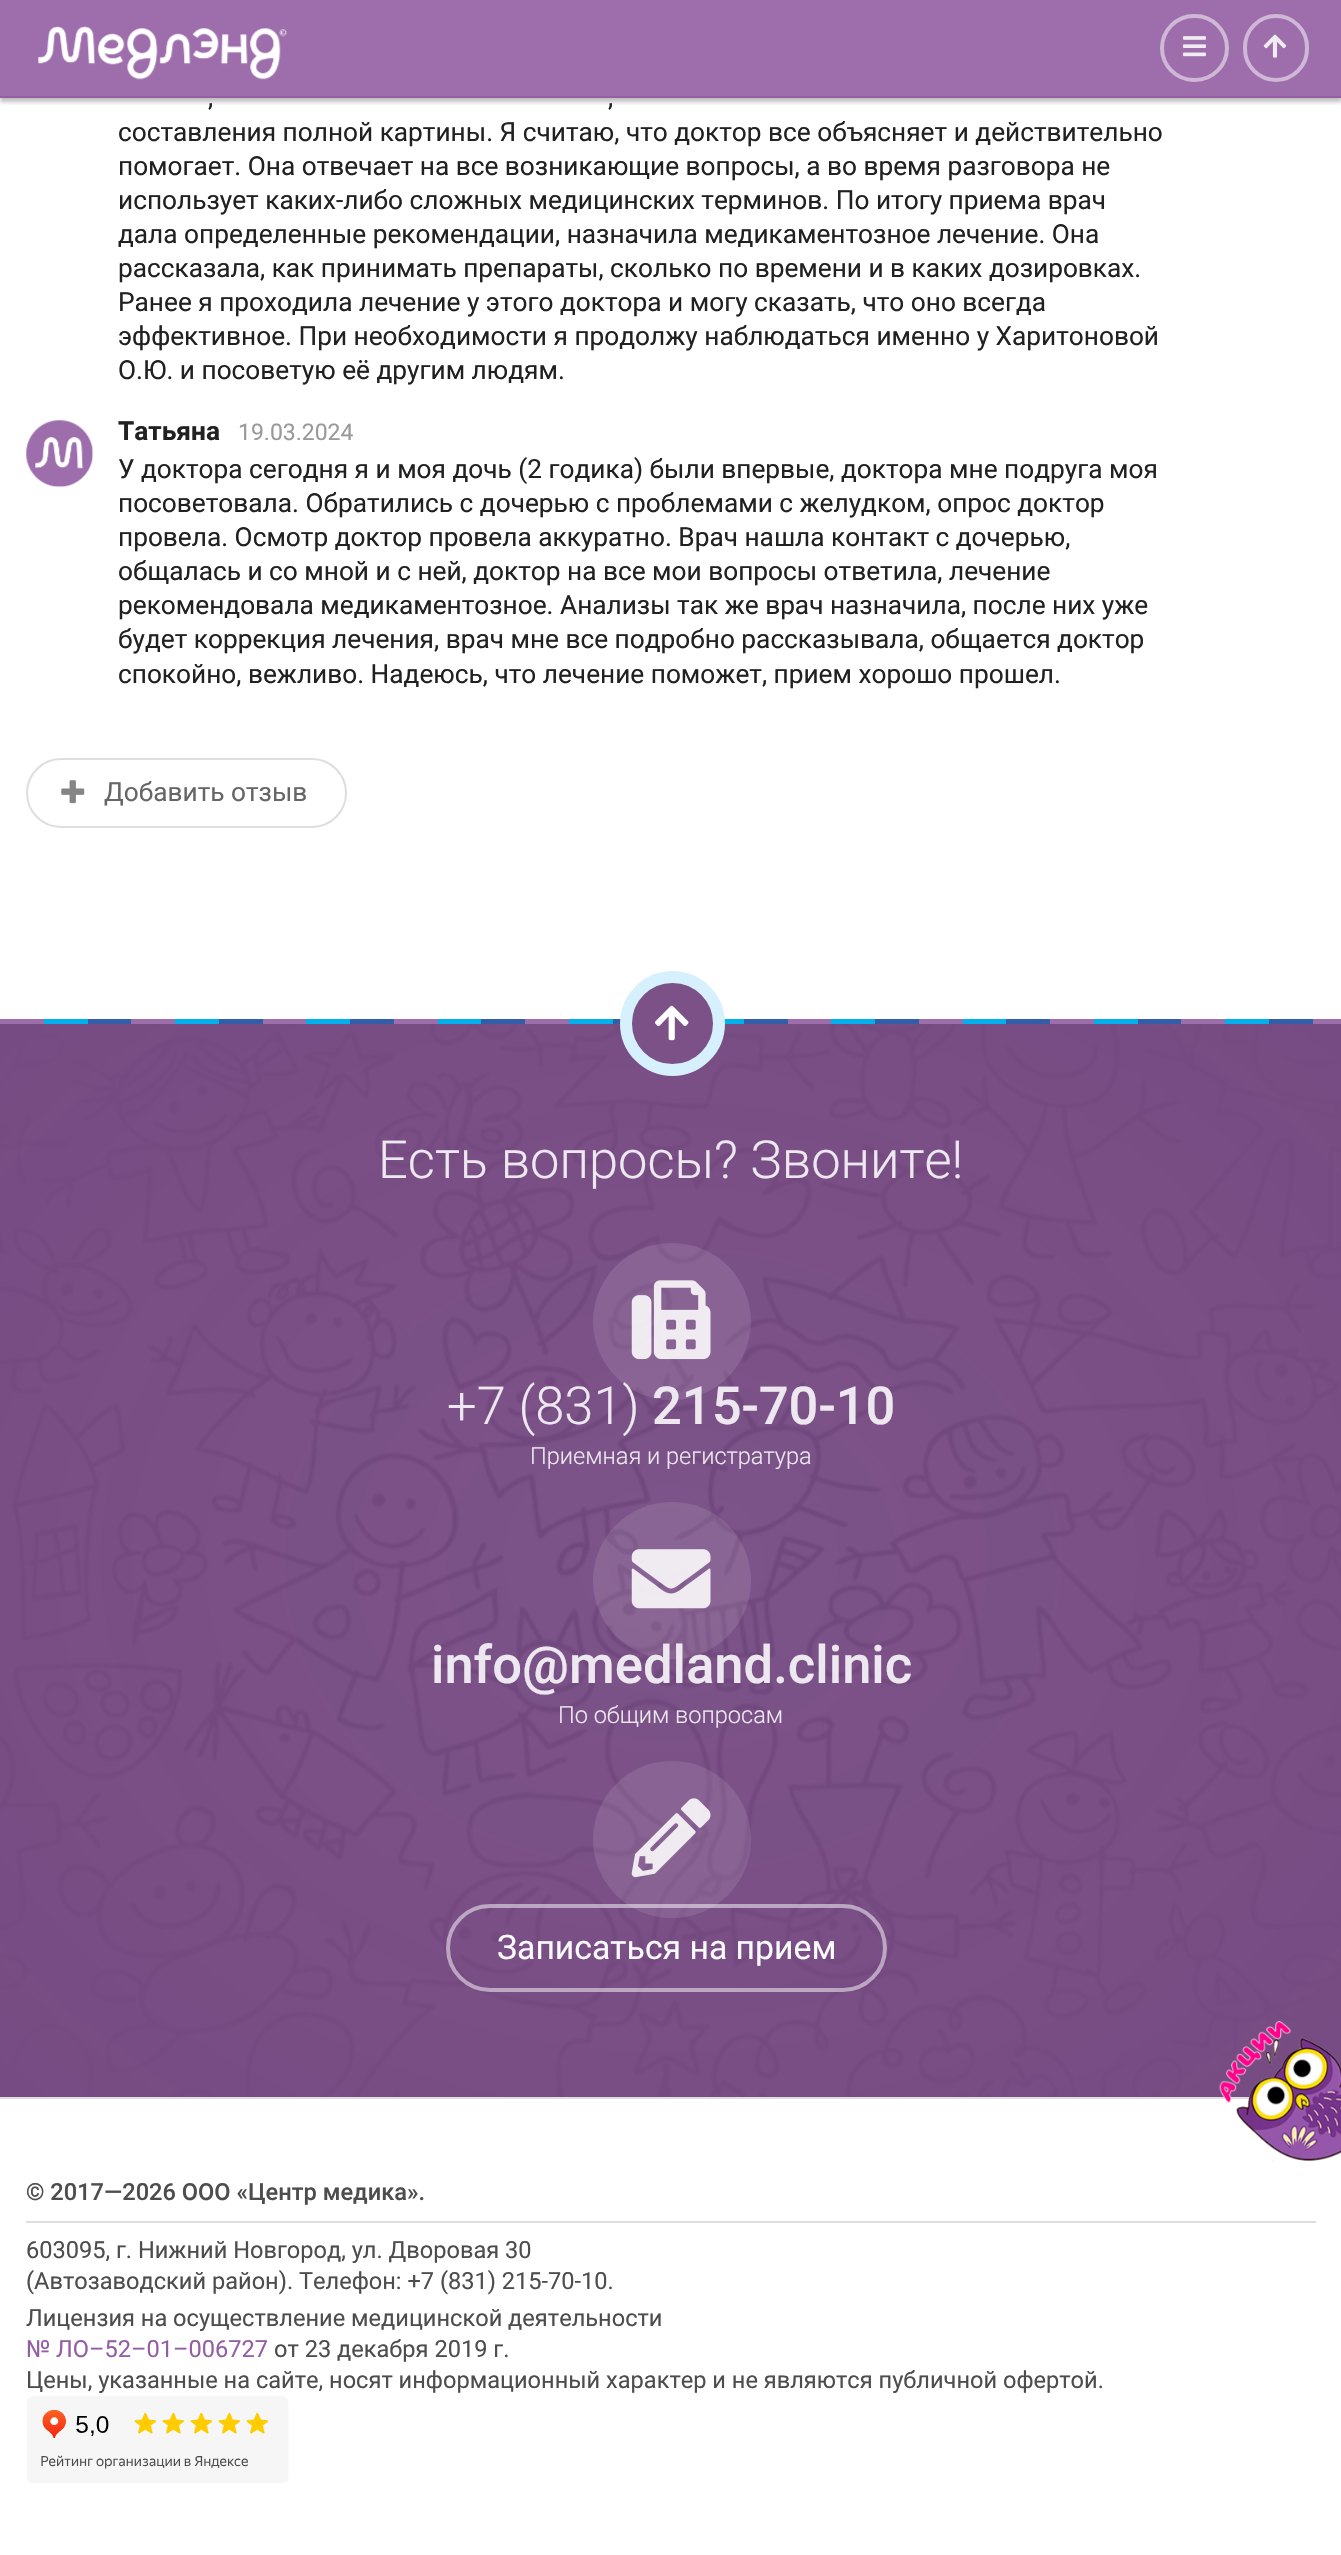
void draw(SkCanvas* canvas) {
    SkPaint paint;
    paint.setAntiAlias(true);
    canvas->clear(0xFFFFFFFF);
    paint.setColor(0x40000000);
    paint.setMaskFilter(SkMaskFilter::MakeBlur(kNormal_SkBlurStyle, 2));
    canvas->drawRect(SkRect::MakeXYWH(0, 4, 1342, 98), paint);
    paint.setMaskFilter(nullptr);
    paint.setColor(0xFF9E6EAC);
    canvas->drawRect(SkRect::MakeXYWH(0, 0, 1341, 96), paint);
    paint.setColor(0xFF935EA3);
    canvas->drawRect(SkRect::MakeXYWH(0, 96, 1341, 2), paint);
    canvas->drawImageRect(SkImages::DeferredFromEncodedData(SkData::MakeFromFileName("img1.png")), SkRect::MakeXYWH(38, 26, 249, 54), SkSamplingOptions());
    paint.setStyle(SkPaint::kStroke_Style);
    paint.setStrokeWidth(4);
    paint.setColor(0xFFCFB7D6);
    canvas->drawRoundRect(SkRect::MakeXYWH(1162, 16, 65, 64), 32, 32, paint);
    canvas->drawImageRect(SkImages::DeferredFromEncodedData(SkData::MakeFromFileName("img2.png")), SkRect::MakeXYWH(1183, 36, 23, 21), SkSamplingOptions());
    canvas->drawRoundRect(SkRect::MakeXYWH(1245, 16, 62, 64), 31, 31, paint);
    canvas->drawImageRect(SkImages::DeferredFromEncodedData(SkData::MakeFromFileName("img3.png")), SkRect::MakeXYWH(1263, 34, 24, 24), SkSamplingOptions());
    SkFont font1(fontMgr->matchFamilyStyle("Roboto", SkFontStyle::Normal()), 26.25f);
    font1.setSubpixel(true);
    paint.setStyle(SkPaint::kFill_Style);
    paint.setColor(0xFF212121);
    canvas->drawString(",", 208, 106, font1, paint);
    canvas->drawString(",", 608, 106, font1, paint);
    canvas->drawString("составления полной картины. Я считаю, что доктор все объясняет и действительно", 118, 141, font1, paint);
    canvas->drawString("помогает. Она отвечает на все возникающие вопросы, а во время разговора не", 118, 175, font1, paint);
    canvas->drawString("использует каких-либо сложных медицинских терминов. По итогу приема врач", 118, 209, font1, paint);
    canvas->drawString("дала определенные рекомендации, назначила медикаментозное лечение. Она", 118, 243, font1, paint);
    canvas->drawString("рассказала, как принимать препараты, сколько по времени и в каких дозировках.", 118, 277, font1, paint);
    canvas->drawString("Ранее я проходила лечение у этого доктора и могу сказать, что оно всегда", 118, 311, font1, paint);
    canvas->drawString("эффективное. При необходимости я продолжу наблюдаться именно у Харитоновой", 118, 345, font1, paint);
    canvas->drawString("О.Ю. и посоветую её другим людям.", 118, 379, font1, paint);
    canvas->drawImageRect(SkImages::DeferredFromEncodedData(SkData::MakeFromFileName("img4.png")), SkRect::MakeXYWH(26, 420, 68, 68), SkSamplingOptions());
    SkFont font2(fontMgr->matchFamilyStyle("Roboto", SkFontStyle::Bold()), 26.25f);
    font2.setSubpixel(true);
    canvas->drawString("Татьяна", 118, 440, font2, paint);
    SkFont font3(fontMgr->matchFamilyStyle("Roboto", SkFontStyle::Normal()), 23);
    font3.setSubpixel(true);
    paint.setColor(0xFF999999);
    canvas->drawString("19.03.2024", 238, 440, font3, paint);
    paint.setColor(0xFF212121);
    canvas->drawString("У доктора сегодня я и моя дочь (2 годика) были впервые, доктора мне подруга моя", 118, 478, font1, paint);
    canvas->drawString("посоветовала. Обратились с дочерью с проблемами с желудком, опрос доктор", 118, 512, font1, paint);
    canvas->drawString("провела. Осмотр доктор провела аккуратно. Врач нашла контакт с дочерью,", 118, 546, font1, paint);
    canvas->drawString("общалась и со мной и с ней, доктор на все мои вопросы ответила, лечение", 118, 580, font1, paint);
    canvas->drawString("рекомендовала медикаментозное. Анализы так же врач назначила, после них уже", 118, 614, font1, paint);
    canvas->drawString("будет коррекция лечения, врач мне все подробно рассказывала, общается доктор", 118, 648, font1, paint);
    canvas->drawString("спокойно, вежливо. Надеюсь, что лечение поможет, прием хорошо прошел.", 118, 683, font1, paint);
    paint.setStyle(SkPaint::kStroke_Style);
    paint.setStrokeWidth(2);
    paint.setColor(0xFFDEDEDE);
    canvas->drawRoundRect(SkRect::MakeXYWH(27, 759, 319, 68), 34, 34, paint);
    canvas->drawImageRect(SkImages::DeferredFromEncodedData(SkData::MakeFromFileName("img5.png")), SkRect::MakeXYWH(61, 780, 24, 24), SkSamplingOptions());
    paint.setStyle(SkPaint::kFill_Style);
    paint.setColor(0xFF666666);
    canvas->drawString("Добавить отзыв", 104, 801, font1, paint);
    canvas->drawImageRect(SkImages::DeferredFromEncodedData(SkData::MakeFromFileName("img6.png")), SkRect::MakeXYWH(0, 1024, 1341, 1073), SkSamplingOptions());
    canvas->drawImageRect(SkImages::DeferredFromEncodedData(SkData::MakeFromFileName("img8.png")), SkRect::MakeXYWH(0, 1019, 1341, 5), SkSamplingOptions());
    paint.setColor(0xFF7B5187);
    canvas->drawCircle(672.5f, 1023.5f, 46.5f, paint);
    paint.setStyle(SkPaint::kStroke_Style);
    paint.setStrokeWidth(12);
    paint.setColor(0xFFD6F1FD);
    canvas->drawCircle(672.5f, 1023.5f, 46.5f, paint);
    canvas->drawImageRect(SkImages::DeferredFromEncodedData(SkData::MakeFromFileName("img7.png")), SkRect::MakeXYWH(655, 1005, 34, 36), SkSamplingOptions());
    SkFont font4(fontMgr->matchFamilyStyle("Roboto", SkFontStyle(300, SkFontStyle::kNormal_Width, SkFontStyle::kUpright_Slant)), 52.5f);
    font4.setSubpixel(true);
    paint.setStyle(SkPaint::kFill_Style);
    paint.setColor(0xFFEDE8EF);
    canvas->drawString("Есть вопросы? Звоните!", 378, 1178, font4, paint);
    canvas->drawImageRect(SkImages::DeferredFromEncodedData(SkData::MakeFromFileName("img9.png")), SkRect::MakeXYWH(631, 1280, 80, 80), SkSamplingOptions());
    paint.setColor(0x1AFFFFFF);
    canvas->drawRoundRect(SkRect::MakeXYWH(593, 1243, 158, 157), 78.5f, 78.5f, paint);
    paint.setColor(0xFFEDE8EF);
    canvas->drawString("+7 (831)", 447, 1424, font4, paint);
    SkFont font5(fontMgr->matchFamilyStyle("Roboto", SkFontStyle(500, SkFontStyle::kNormal_Width, SkFontStyle::kUpright_Slant)), 52.5f);
    font5.setSubpixel(true);
    canvas->drawString("215-70-10", 652, 1424, font5, paint);
    SkFont font6(fontMgr->matchFamilyStyle("Roboto", SkFontStyle(300, SkFontStyle::kNormal_Width, SkFontStyle::kUpright_Slant)), 23.6f);
    font6.setSubpixel(true);
    canvas->drawString("Приемная и регистратура", 530, 1464, font6, paint);
    canvas->drawImageRect(SkImages::DeferredFromEncodedData(SkData::MakeFromFileName("img10.png")), SkRect::MakeXYWH(631, 1549, 80, 60), SkSamplingOptions());
    paint.setColor(0x1AFFFFFF);
    canvas->drawRoundRect(SkRect::MakeXYWH(593, 1502, 158, 157), 78.5f, 78.5f, paint);
    paint.setColor(0xFFEDE8EF);
    canvas->drawString("info@medland.clinic", 431, 1683, font5, paint);
    canvas->drawString("По общим вопросам", 558, 1723, font6, paint);
    canvas->drawImageRect(SkImages::DeferredFromEncodedData(SkData::MakeFromFileName("img11.png")), SkRect::MakeXYWH(631, 1798, 80, 80), SkSamplingOptions());
    paint.setStyle(SkPaint::kStroke_Style);
    paint.setStrokeWidth(4);
    paint.setColor(0x80FFFFFF);
    canvas->drawRoundRect(SkRect::MakeXYWH(448, 1906, 437, 84), 42, 42, paint);
    paint.setStyle(SkPaint::kFill_Style);
    paint.setColor(0x1AFFFFFF);
    canvas->drawRoundRect(SkRect::MakeXYWH(593, 1761, 158, 157), 78.5f, 78.5f, paint);
    SkFont font7(fontMgr->matchFamilyStyle("Roboto", SkFontStyle::Normal()), 33.75f);
    font7.setSubpixel(true);
    paint.setColor(0xFFF9FAFB);
    canvas->drawString("Записаться на прием", 497, 1959, font7, paint);
    paint.setColor(0xFFDEDEDE);
    canvas->drawRect(SkRect::MakeXYWH(0, 2097, 1251, 2), paint);
    canvas->drawRect(SkRect::MakeXYWH(26, 2221, 1290, 2), paint);
    SkFont font8(fontMgr->matchFamilyStyle("Roboto", SkFontStyle(500, SkFontStyle::kNormal_Width, SkFontStyle::kUpright_Slant)), 23.6f);
    font8.setSubpixel(true);
    paint.setColor(0xFF4D4D4D);
    canvas->drawString("© 2017—2026 ООО «Центр медика».", 26, 2200, font8, paint);
    SkFont font9(fontMgr->matchFamilyStyle("Roboto", SkFontStyle::Normal()), 23.6f);
    font9.setSubpixel(true);
    canvas->drawString("603095, г. Нижний Новгород, ул. Дворовая 30", 26, 2258, font9, paint);
    canvas->drawString("(Автозаводский район). Телефон: +7 (831) 215-70-10.", 26, 2289, font9, paint);
    canvas->drawString("Лицензия на осуществление медицинской деятельности", 26, 2326, font9, paint);
    paint.setColor(0xFF935EA3);
    canvas->drawString("№ ЛО–52–01–006727", 26, 2357, font9, paint);
    paint.setColor(0xFF4D4D4D);
    canvas->drawString("от 23 декабря 2019 г.", 274, 2357, font9, paint);
    canvas->drawString("Цены, указанные на сайте, носят информационный характер и не являются публичной офертой.", 26, 2388, font9, paint);
    canvas->drawImageRect(SkImages::DeferredFromEncodedData(SkData::MakeFromFileName("img12.png")), SkRect::MakeXYWH(27, 2396, 262, 87), SkSamplingOptions());
    canvas->drawImageRect(SkImages::DeferredFromEncodedData(SkData::MakeFromFileName("img13.png")), SkRect::MakeXYWH(1219, 2021, 122, 141), SkSamplingOptions());
}
